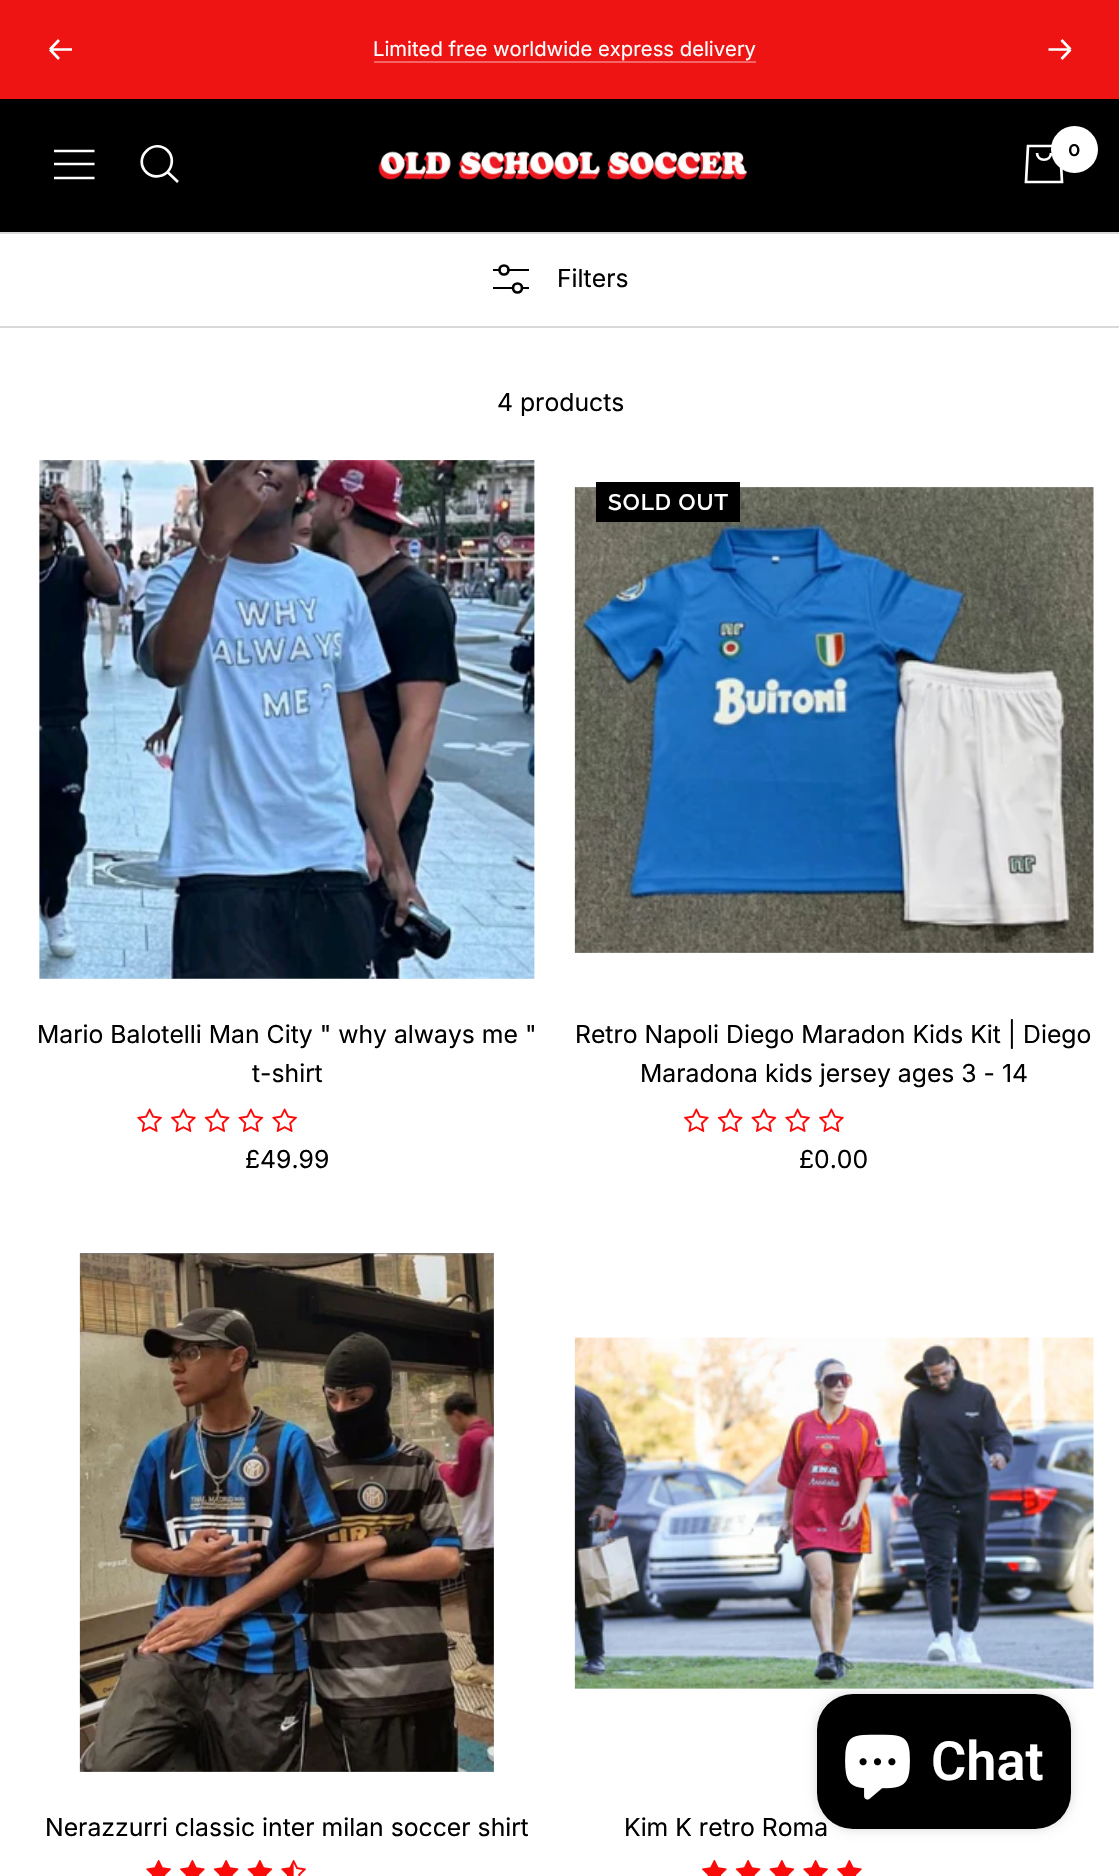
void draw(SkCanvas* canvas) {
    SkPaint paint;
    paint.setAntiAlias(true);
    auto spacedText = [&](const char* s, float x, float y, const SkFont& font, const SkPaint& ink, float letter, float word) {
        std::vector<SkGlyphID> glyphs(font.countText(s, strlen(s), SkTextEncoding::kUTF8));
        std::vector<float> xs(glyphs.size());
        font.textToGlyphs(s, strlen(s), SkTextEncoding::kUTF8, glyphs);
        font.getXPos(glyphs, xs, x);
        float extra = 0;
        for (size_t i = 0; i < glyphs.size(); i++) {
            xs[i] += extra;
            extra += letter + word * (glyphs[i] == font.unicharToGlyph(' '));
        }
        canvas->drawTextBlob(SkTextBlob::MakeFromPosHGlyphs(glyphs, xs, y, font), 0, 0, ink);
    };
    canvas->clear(0xFFFFFFFF);
    paint.setColor(0xFFEE1414);
    canvas->drawRect(SkRect::MakeXYWH(0, 0, 1119, 99), paint);
    paint.setStyle(SkPaint::kStroke_Style);
    paint.setStrokeWidth(2.7f);
    paint.setColor(0xFFFFFFFF);
    canvas->drawPath(SkPathBuilder().moveTo(72, 49.5f).lineTo(50, 49.5f).moveTo(50, 49.5f).lineTo(59, 59).moveTo(50, 49.5f).lineTo(59, 40).detach(), paint);
    SkFont font1(fontMgr->matchFamilyStyle("Inter", SkFontStyle::Normal()), 20.25f);
    font1.setSubpixel(true);
    paint.setStyle(SkPaint::kFill_Style);
    canvas->drawString("Limited free worldwide express delivery", 373, 56, font1, paint);
    paint.setColor(0xFFF46666);
    canvas->drawRect(SkRect::MakeXYWH(374, 61, 382, 2), paint);
    paint.setStyle(SkPaint::kStroke_Style);
    paint.setColor(0xFFFFFFFF);
    canvas->drawPath(SkPathBuilder().moveTo(1048.5f, 49.5f).lineTo(1070.5f, 49.5f).moveTo(1070.5f, 49.5f).lineTo(1061.5f, 59).moveTo(1070.5f, 49.5f).lineTo(1061.5f, 40).detach(), paint);
    paint.setStyle(SkPaint::kFill_Style);
    paint.setColor(0xFF000000);
    canvas->drawRect(SkRect::MakeXYWH(0, 99, 1119, 133), paint);
    paint.setStyle(SkPaint::kStroke_Style);
    paint.setColor(0xFFFFFFFF);
    canvas->drawPath(SkPathBuilder().moveTo(54, 151).lineTo(94.5f, 151).moveTo(54, 178).lineTo(94.5f, 178).close().moveTo(54, 164).lineTo(94.5f, 164).close().detach(), paint);
    canvas->drawPath(SkPathBuilder().moveTo(167.5f, 172).cubicTo(173, 166, 173.5f, 156.5f, 167.5f, 150.5f).cubicTo(161.5f, 144.5f, 152, 145, 146.5f, 151).cubicTo(140.5f, 156.5f, 140, 166, 146, 172).cubicTo(152, 178, 161.5f, 177.5f, 167.5f, 172).close().moveTo(167.5f, 172).lineTo(178, 182).detach(), paint);
    canvas->drawImageRect(SkImages::DeferredFromEncodedData(SkData::MakeFromFileName("img1.png")), SkRect::MakeXYWH(378, 151, 370, 29), SkSamplingOptions());
    canvas->drawPath(SkPathBuilder().moveTo(1028, 146).lineTo(1060, 146).lineTo(1062, 182).lineTo(1026, 182).close().moveTo(1037, 153).cubicTo(1037, 162, 1051, 162, 1051, 153).detach(), paint);
    paint.setStyle(SkPaint::kFill_Style);
    canvas->drawCircle(1074.5f, 149.5f, 23.5f, paint);
    SkFont font2(fontMgr->matchFamilyStyle("Raleway", SkFontStyle(600, SkFontStyle::kNormal_Width, SkFontStyle::kUpright_Slant)), 20.25f);
    font2.setSubpixel(true);
    paint.setColor(0xFF000000);
    canvas->drawString("0", 1068, 156, font2, paint);
    paint.setColor(0xFFD9D9D9);
    canvas->drawRect(SkRect::MakeXYWH(0, 232, 1119, 2), paint);
    canvas->drawRect(SkRect::MakeXYWH(0, 326, 1119, 2), paint);
    paint.setStyle(SkPaint::kStroke_Style);
    paint.setStrokeWidth(2.2f);
    paint.setColor(0xFF000000);
    canvas->drawPath(SkPathBuilder().moveTo(493, 270).lineTo(529, 270).moveTo(493, 288).lineTo(529, 288).detach(), paint);
    paint.setStyle(SkPaint::kFill_Style);
    paint.setColor(0xFFFFFFFF);
    canvas->drawCircle(504, 270, 4.5f, paint);
    paint.setStyle(SkPaint::kStroke_Style);
    paint.setStrokeWidth(2.7f);
    paint.setColor(0xFF000000);
    canvas->drawCircle(504, 270, 4.5f, paint);
    paint.setStyle(SkPaint::kFill_Style);
    paint.setColor(0xFFFFFFFF);
    canvas->drawCircle(517.5f, 288, 4.5f, paint);
    paint.setStyle(SkPaint::kStroke_Style);
    paint.setColor(0xFF000000);
    canvas->drawCircle(517.5f, 288, 4.5f, paint);
    SkFont font3(fontMgr->matchFamilyStyle("Inter", SkFontStyle::Normal()), 24.75f);
    font3.setSubpixel(true);
    paint.setStyle(SkPaint::kFill_Style);
    canvas->drawString("Filters", 557, 287, font3, paint);
    canvas->drawString("4 products", 497, 411, font3, paint);
    canvas->drawImageRect(SkImages::DeferredFromEncodedData(SkData::MakeFromFileName("img2.png")), SkRect::MakeXYWH(39, 460, 496, 519), SkSamplingOptions());
    canvas->drawString("Mario Balotelli Man City \" why always me \"", 37, 1043, font3, paint);
    canvas->drawString("t-shirt", 252, 1082, font3, paint);
    canvas->drawImageRect(SkImages::DeferredFromEncodedData(SkData::MakeFromFileName("img3.png")), SkRect::MakeXYWH(137, 1108, 25, 24), SkSamplingOptions());
    canvas->drawImageRect(SkImages::DeferredFromEncodedData(SkData::MakeFromFileName("img4.png")), SkRect::MakeXYWH(171, 1108, 25, 24), SkSamplingOptions());
    canvas->drawImageRect(SkImages::DeferredFromEncodedData(SkData::MakeFromFileName("img5.png")), SkRect::MakeXYWH(204, 1108, 26, 24), SkSamplingOptions());
    canvas->drawImageRect(SkImages::DeferredFromEncodedData(SkData::MakeFromFileName("img6.png")), SkRect::MakeXYWH(238, 1108, 26, 24), SkSamplingOptions());
    canvas->drawImageRect(SkImages::DeferredFromEncodedData(SkData::MakeFromFileName("img3.png")), SkRect::MakeXYWH(272, 1108, 25, 24), SkSamplingOptions());
    canvas->drawString("£49.99", 245, 1168, font3, paint);
    canvas->drawImageRect(SkImages::DeferredFromEncodedData(SkData::MakeFromFileName("img7.png")), SkRect::MakeXYWH(574, 487, 520, 466), SkSamplingOptions());
    canvas->drawRect(SkRect::MakeXYWH(596, 482, 144, 40), paint);
    SkFont font4(fontMgr->matchFamilyStyle("Raleway", SkFontStyle(600, SkFontStyle::kNormal_Width, SkFontStyle::kUpright_Slant)), 22.5f);
    font4.setSubpixel(true);
    paint.setColor(0xFFFFFFFF);
    spacedText("SOLD OUT", 608, 510, font4, paint, 1, 0);
    paint.setColor(0xFF000000);
    canvas->drawString("Retro Napoli Diego Maradon Kids Kit | Diego", 575, 1043, font3, paint);
    canvas->drawString("Maradona kids jersey ages 3 - 14", 640, 1082, font3, paint);
    canvas->drawImageRect(SkImages::DeferredFromEncodedData(SkData::MakeFromFileName("img4.png")), SkRect::MakeXYWH(684, 1108, 25, 24), SkSamplingOptions());
    canvas->drawImageRect(SkImages::DeferredFromEncodedData(SkData::MakeFromFileName("img5.png")), SkRect::MakeXYWH(717, 1108, 26, 24), SkSamplingOptions());
    canvas->drawImageRect(SkImages::DeferredFromEncodedData(SkData::MakeFromFileName("img6.png")), SkRect::MakeXYWH(751, 1108, 26, 24), SkSamplingOptions());
    canvas->drawImageRect(SkImages::DeferredFromEncodedData(SkData::MakeFromFileName("img3.png")), SkRect::MakeXYWH(785, 1108, 25, 24), SkSamplingOptions());
    canvas->drawImageRect(SkImages::DeferredFromEncodedData(SkData::MakeFromFileName("img4.png")), SkRect::MakeXYWH(819, 1108, 25, 24), SkSamplingOptions());
    canvas->drawString("£0.00", 799, 1168, font3, paint);
    canvas->drawImageRect(SkImages::DeferredFromEncodedData(SkData::MakeFromFileName("img8.png")), SkRect::MakeXYWH(79, 1253, 415, 519), SkSamplingOptions());
    canvas->drawString("Nerazzurri classic inter milan soccer shirt", 45, 1836, font3, paint);
    canvas->drawImageRect(SkImages::DeferredFromEncodedData(SkData::MakeFromFileName("img9.png")), SkRect::MakeXYWH(146, 1860, 25, 16), SkSamplingOptions());
    canvas->drawImageRect(SkImages::DeferredFromEncodedData(SkData::MakeFromFileName("img10.png")), SkRect::MakeXYWH(180, 1860, 25, 16), SkSamplingOptions());
    canvas->drawImageRect(SkImages::DeferredFromEncodedData(SkData::MakeFromFileName("img11.png")), SkRect::MakeXYWH(213, 1860, 26, 16), SkSamplingOptions());
    canvas->drawImageRect(SkImages::DeferredFromEncodedData(SkData::MakeFromFileName("img12.png")), SkRect::MakeXYWH(247, 1860, 26, 16), SkSamplingOptions());
    canvas->drawImageRect(SkImages::DeferredFromEncodedData(SkData::MakeFromFileName("img13.png")), SkRect::MakeXYWH(281, 1860, 25, 16), SkSamplingOptions());
    canvas->drawImageRect(SkImages::DeferredFromEncodedData(SkData::MakeFromFileName("img14.png")), SkRect::MakeXYWH(574, 1337, 520, 352), SkSamplingOptions());
    canvas->drawString("Kim K retro Roma", 624, 1836, font3, paint);
    canvas->drawImageRect(SkImages::DeferredFromEncodedData(SkData::MakeFromFileName("img10.png")), SkRect::MakeXYWH(702, 1860, 25, 16), SkSamplingOptions());
    canvas->drawImageRect(SkImages::DeferredFromEncodedData(SkData::MakeFromFileName("img11.png")), SkRect::MakeXYWH(735, 1860, 26, 16), SkSamplingOptions());
    canvas->drawImageRect(SkImages::DeferredFromEncodedData(SkData::MakeFromFileName("img12.png")), SkRect::MakeXYWH(769, 1860, 26, 16), SkSamplingOptions());
    canvas->drawImageRect(SkImages::DeferredFromEncodedData(SkData::MakeFromFileName("img9.png")), SkRect::MakeXYWH(803, 1860, 25, 16), SkSamplingOptions());
    canvas->drawImageRect(SkImages::DeferredFromEncodedData(SkData::MakeFromFileName("img10.png")), SkRect::MakeXYWH(837, 1860, 25, 16), SkSamplingOptions());
    paint.setColor(0x26000000);
    paint.setMaskFilter(SkMaskFilter::MakeBlur(kNormal_SkBlurStyle, 5.5f));
    canvas->drawRoundRect(SkRect::MakeXYWH(817, 1694, 254, 135), 36, 36, paint);
    paint.setMaskFilter(nullptr);
    paint.setColor(0xFF000000);
    canvas->drawRoundRect(SkRect::MakeXYWH(817, 1694, 254, 135), 36, 36, paint);
    canvas->drawImageRect(SkImages::DeferredFromEncodedData(SkData::MakeFromFileName("img15.png")), SkRect::MakeXYWH(845, 1734, 65, 66), SkSamplingOptions());
    SkFont font5(fontMgr->matchFamilyStyle("Roboto", SkFontStyle(600, SkFontStyle::kNormal_Width, SkFontStyle::kUpright_Slant)), 54);
    font5.setSubpixel(true);
    paint.setColor(0xFFFFFFFF);
    canvas->drawString("Chat", 931, 1780, font5, paint);
}
